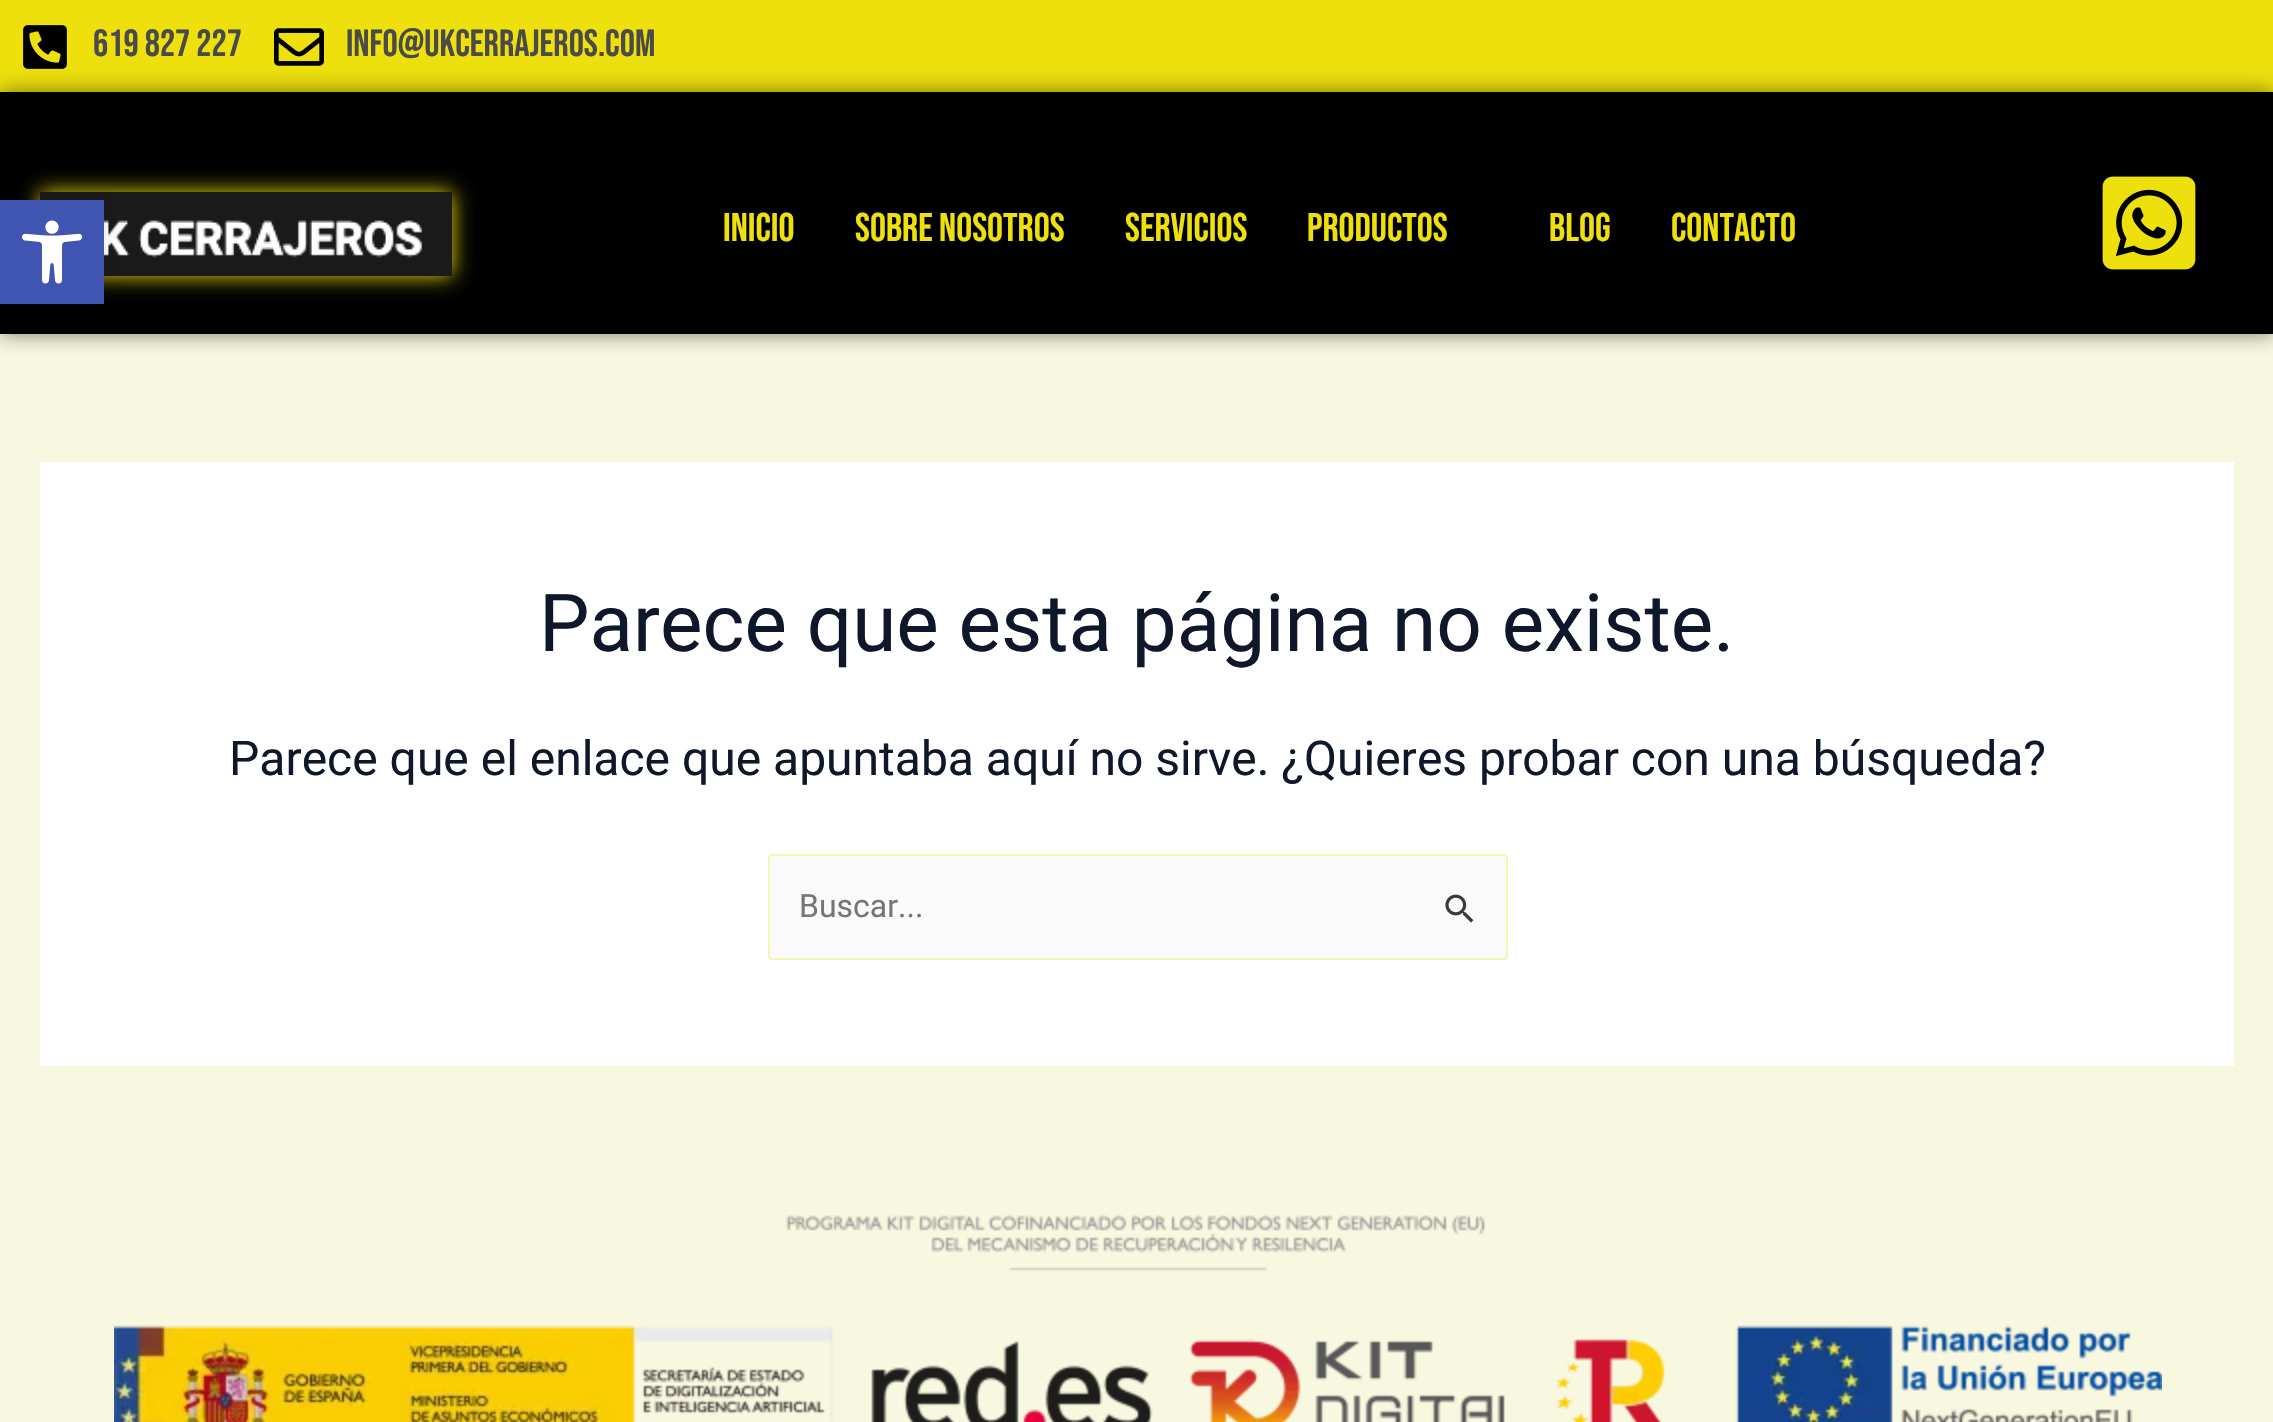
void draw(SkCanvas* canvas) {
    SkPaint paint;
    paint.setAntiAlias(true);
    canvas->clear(0xFFF8F7DF);
    paint.setColor(0xFFEDE00D);
    canvas->drawRect(SkRect::MakeXYWH(0, 0, 2273, 92), paint);
    canvas->drawImageRect(SkImages::DeferredFromEncodedData(SkData::MakeFromFileName("img2.png")), SkRect::MakeXYWH(23, 25, 44, 44), SkSamplingOptions());
    canvas->drawImageRect(SkImages::DeferredFromEncodedData(SkData::MakeFromFileName("img3.png")), SkRect::MakeXYWH(274, 28, 50, 38), SkSamplingOptions());
    paint.setColor(0x80000000);
    paint.setMaskFilter(SkMaskFilter::MakeBlur(kNormal_SkBlurStyle, 10));
    canvas->drawRect(SkRect::MakeXYWH(0, 92, 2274, 242), paint);
    paint.setMaskFilter(nullptr);
    paint.setColor(0xFF000000);
    canvas->drawRect(SkRect::MakeXYWH(0, 92, 2273, 242), paint);
    paint.setColor(0xFFEDE00D);
    paint.setMaskFilter(SkMaskFilter::MakeBlur(kNormal_SkBlurStyle, 10));
    canvas->drawRect(SkRect::MakeXYWH(40, 192, 412, 84), paint);
    paint.setMaskFilter(nullptr);
    canvas->drawImageRect(SkImages::DeferredFromEncodedData(SkData::MakeFromFileName("img4.png")), SkRect::MakeXYWH(40, 192, 412, 84), SkSamplingOptions());
    paint.setColor(0x1A000000);
    paint.setMaskFilter(SkMaskFilter::MakeBlur(kNormal_SkBlurStyle, 10));
    canvas->drawRect(SkRect::MakeXYWH(0, 200, 104, 104), paint);
    paint.setMaskFilter(nullptr);
    paint.setColor(0xFF4054B2);
    canvas->drawRect(SkRect::MakeXYWH(0, 200, 104, 104), paint);
    canvas->drawImageRect(SkImages::DeferredFromEncodedData(SkData::MakeFromFileName("img1.png")), SkRect::MakeXYWH(22, 220, 61, 64), SkSamplingOptions());
    SkFont font1(fontMgr->matchFamilyStyle("Bebas Neue", SkFontStyle::Normal()), 38);
    font1.setSubpixel(true);
    paint.setColor(0xFF4A4A4A);
    canvas->drawString("619 827 227", 93, 56, font1, paint);
    canvas->drawString("info@ukcerrajeros.com", 346, 56, font1, paint);
    SkFont font2(fontMgr->matchFamilyStyle("Bebas Neue", SkFontStyle::Normal()), 40);
    font2.setSubpixel(true);
    paint.setColor(0xFFEDE00D);
    canvas->drawString("INICIO", 723, 241, font2, paint);
    canvas->drawString("SOBRE NOSOTROS", 855, 241, font2, paint);
    canvas->drawString("SERVICIOS", 1125, 241, font2, paint);
    canvas->drawString("PRODUCTOS", 1307, 241, font2, paint);
    canvas->drawString("Blog", 1549, 241, font2, paint);
    canvas->drawString("Contacto", 1671, 241, font2, paint);
    canvas->drawImageRect(SkImages::DeferredFromEncodedData(SkData::MakeFromFileName("img5.png")), SkRect::MakeXYWH(2102, 176, 94, 94), SkSamplingOptions());
    paint.setColor(0xFFFFFFFF);
    canvas->drawRect(SkRect::MakeXYWH(40, 462, 2194, 604), paint);
    SkFont font3(fontMgr->matchFamilyStyle("Roboto", SkFontStyle::Normal()), 80);
    font3.setSubpixel(true);
    paint.setColor(0xFF0F172A);
    canvas->drawString("Parece que esta página no existe.", 539, 651, font3, paint);
    SkFont font4(fontMgr->matchFamilyStyle("Roboto", SkFontStyle::Normal()), 48);
    font4.setSubpixel(true);
    canvas->drawString("Parece que el enlace que apuntaba aquí no sirve. ¿Quieres probar con una búsqueda?", 229, 775, font4, paint);
    paint.setColor(0xFFFAFAFA);
    canvas->drawRoundRect(SkRect::MakeXYWH(769, 855, 738, 104), 3, 3, paint);
    paint.setStyle(SkPaint::kStroke_Style);
    paint.setStrokeWidth(2);
    paint.setColor(0xFFF6F6B3);
    canvas->drawRoundRect(SkRect::MakeXYWH(769, 855, 738, 104), 3, 3, paint);
    SkFont font5(fontMgr->matchFamilyStyle("Roboto", SkFontStyle::Normal()), 32);
    font5.setSubpixel(true);
    paint.setStyle(SkPaint::kFill_Style);
    paint.setColor(0xFF757575);
    canvas->drawString("Buscar...", 799, 917, font5, paint);
    canvas->drawImageRect(SkImages::DeferredFromEncodedData(SkData::MakeFromFileName("img6.png")), SkRect::MakeXYWH(1445, 894, 29, 29), SkSamplingOptions());
    canvas->drawImageRect(SkImages::DeferredFromEncodedData(SkData::MakeFromFileName("img7.png")), SkRect::MakeXYWH(114, 1215, 2048, 207), SkSamplingOptions());
}
